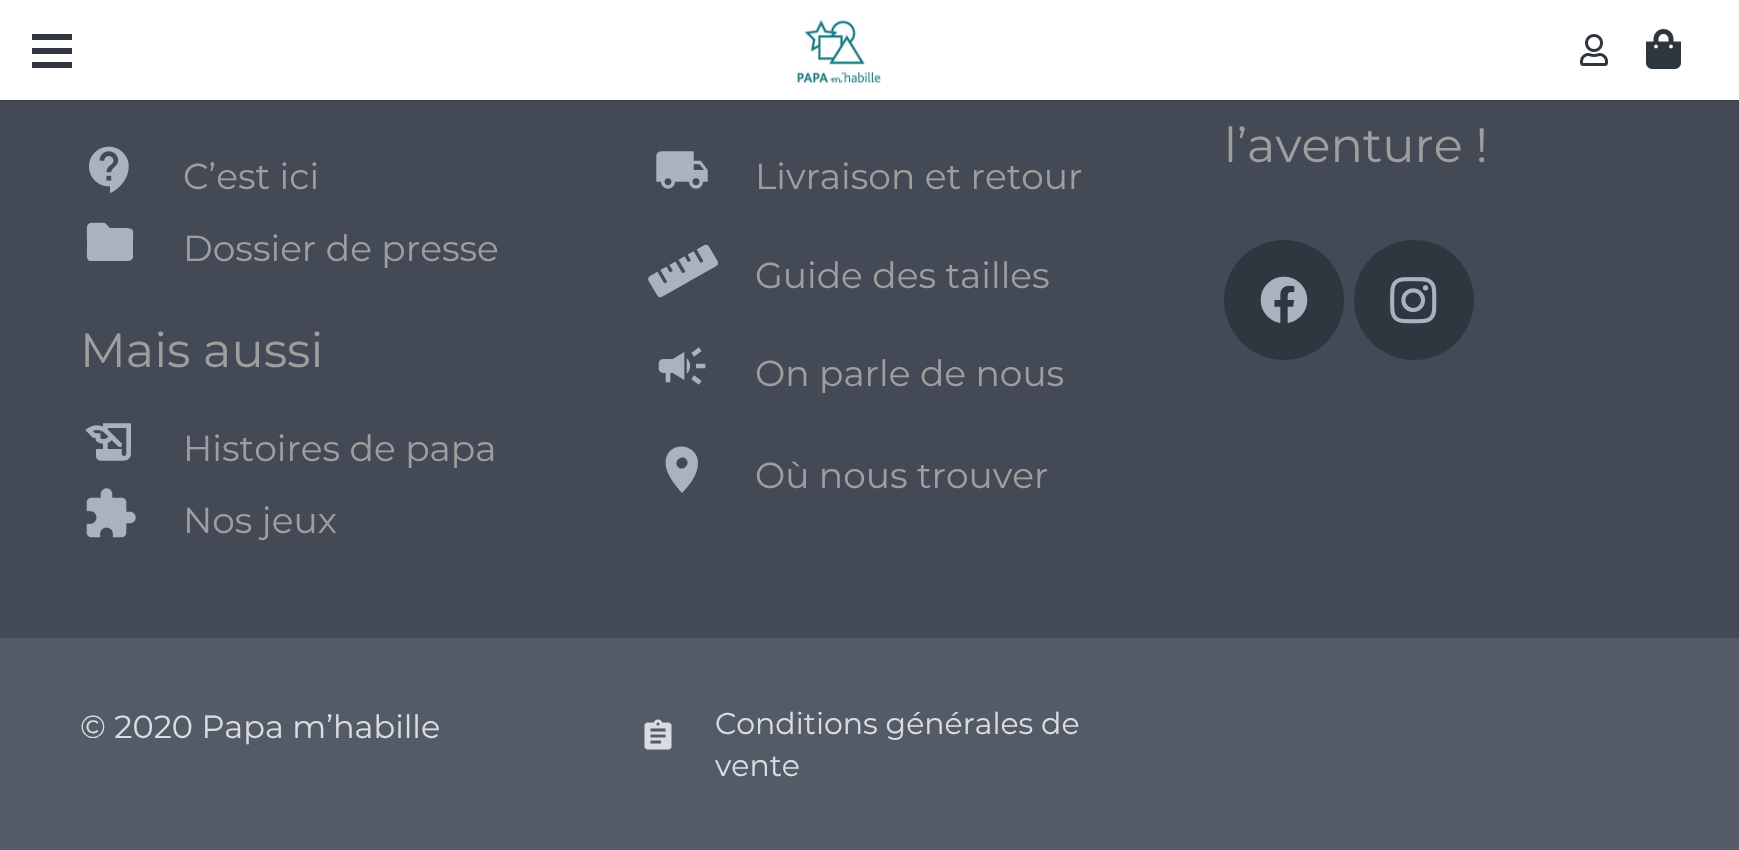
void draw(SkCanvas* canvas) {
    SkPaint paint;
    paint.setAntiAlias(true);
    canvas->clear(0xFF434955);
    paint.setColor(0x14000000);
    canvas->drawRect(SkRect::MakeXYWH(0, 100, 1739, 2), paint);
    paint.setColor(0xFFFFFFFF);
    canvas->drawRect(SkRect::MakeXYWH(0, 0, 1739, 100), paint);
    paint.setColor(0xFF303640);
    canvas->drawRect(SkRect::MakeXYWH(32, 48, 40, 6), paint);
    canvas->drawRect(SkRect::MakeXYWH(32, 34, 40, 6), paint);
    canvas->drawRect(SkRect::MakeXYWH(32, 62, 40, 6), paint);
    canvas->drawImageRect(SkImages::DeferredFromEncodedData(SkData::MakeFromFileName("img1.png")), SkRect::MakeXYWH(796, 16, 85, 68), SkSamplingOptions());
    canvas->drawImageRect(SkImages::DeferredFromEncodedData(SkData::MakeFromFileName("img2.png")), SkRect::MakeXYWH(1580, 34, 28, 32), SkSamplingOptions());
    canvas->drawImageRect(SkImages::DeferredFromEncodedData(SkData::MakeFromFileName("img3.png")), SkRect::MakeXYWH(1646, 29, 35, 40), SkSamplingOptions());
    SkFont font1(fontMgr->matchFamilyStyle("Montserrat", SkFontStyle::Normal()), 48);
    font1.setSubpixel(true);
    paint.setColor(0xFF9E9E9E);
    canvas->drawString("l’aventure !", 1224, 162, font1, paint);
    paint.setColor(0xFF303640);
    canvas->drawCircle(1284, 300, 60, paint);
    canvas->drawImageRect(SkImages::DeferredFromEncodedData(SkData::MakeFromFileName("img4.png")), SkRect::MakeXYWH(1260, 276, 48, 47), SkSamplingOptions());
    canvas->drawCircle(1414, 300, 60, paint);
    canvas->drawImageRect(SkImages::DeferredFromEncodedData(SkData::MakeFromFileName("img5.png")), SkRect::MakeXYWH(1390, 277, 47, 47), SkSamplingOptions());
    canvas->drawImageRect(SkImages::DeferredFromEncodedData(SkData::MakeFromFileName("img6.png")), SkRect::MakeXYWH(89, 146, 40, 48), SkSamplingOptions());
    SkFont font2(fontMgr->matchFamilyStyle("Montserrat", SkFontStyle::Normal()), 36);
    font2.setSubpixel(true);
    paint.setColor(0xFF9E9E9E);
    canvas->drawString("C’est ici", 183, 189, font2, paint);
    paint.setColor(0xFFAAB2BD);
    canvas->drawPath(SkPathBuilder().moveTo(105, 223).lineTo(110, 228).lineTo(126, 228).cubicTo(135, 228, 133, 232, 133, 240).lineTo(133, 258).cubicTo(131, 262, 126, 261, 122, 261).lineTo(90, 261).cubicTo(86, 260, 87, 255, 87, 251).lineTo(87, 242).cubicTo(87, 220, 84, 223, 105, 223).close().detach(), paint);
    paint.setColor(0xFF9E9E9E);
    canvas->drawString("Dossier de presse", 183, 261, font2, paint);
    canvas->drawString("Mais aussi", 80, 367, font1, paint);
    canvas->drawImageRect(SkImages::DeferredFromEncodedData(SkData::MakeFromFileName("img7.png")), SkRect::MakeXYWH(85, 423, 46, 38), SkSamplingOptions());
    canvas->drawString("Histoires de papa", 183, 461, font2, paint);
    canvas->drawImageRect(SkImages::DeferredFromEncodedData(SkData::MakeFromFileName("img8.png")), SkRect::MakeXYWH(86, 488, 50, 50), SkSamplingOptions());
    canvas->drawString("Nos jeux", 183, 533, font2, paint);
    canvas->drawImageRect(SkImages::DeferredFromEncodedData(SkData::MakeFromFileName("img9.png")), SkRect::MakeXYWH(656, 151, 52, 38), SkSamplingOptions());
    canvas->drawString("Livraison et retour", 755, 189, font2, paint);
    canvas->drawImageRect(SkImages::DeferredFromEncodedData(SkData::MakeFromFileName("img10.png")), SkRect::MakeXYWH(648, 244, 70, 54), SkSamplingOptions());
    canvas->drawString("Guide des tailles", 755, 288, font2, paint);
    canvas->drawImageRect(SkImages::DeferredFromEncodedData(SkData::MakeFromFileName("img11.png")), SkRect::MakeXYWH(658, 347, 48, 38), SkSamplingOptions());
    canvas->drawString("On parle de nous", 755, 386, font2, paint);
    paint.setColor(0xFFAAB2BD);
    canvas->drawPath(SkPathBuilder().moveTo(678, 467).cubicTo(683, 472, 691, 464, 686, 459).cubicTo(681, 454, 673, 462, 678, 467).close().moveTo(670, 451).cubicTo(681, 441, 699, 449, 698, 464).cubicTo(698, 474, 689, 486, 682, 493).cubicTo(673, 483, 658, 464, 670, 451).close().detach(), paint);
    paint.setColor(0xFF9E9E9E);
    canvas->drawString("Où nous trouver", 755, 488, font2, paint);
    paint.setColor(0xFF545A66);
    canvas->drawRect(SkRect::MakeXYWH(0, 638, 1739, 212), paint);
    SkFont font3(fontMgr->matchFamilyStyle("Montserrat", SkFontStyle::Normal()), 32);
    font3.setSubpixel(true);
    paint.setColor(0xFFD7DDE0);
    canvas->drawString("© 2020 Papa m’habille", 80, 738, font3, paint);
    canvas->drawImageRect(SkImages::DeferredFromEncodedData(SkData::MakeFromFileName("img12.png")), SkRect::MakeXYWH(644, 719, 28, 31), SkSamplingOptions());
    SkFont font4(fontMgr->matchFamilyStyle("Montserrat", SkFontStyle::Normal()), 30);
    font4.setSubpixel(true);
    canvas->drawString("Conditions générales de", 715, 734, font4, paint);
    canvas->drawString("vente", 715, 776, font4, paint);
}
